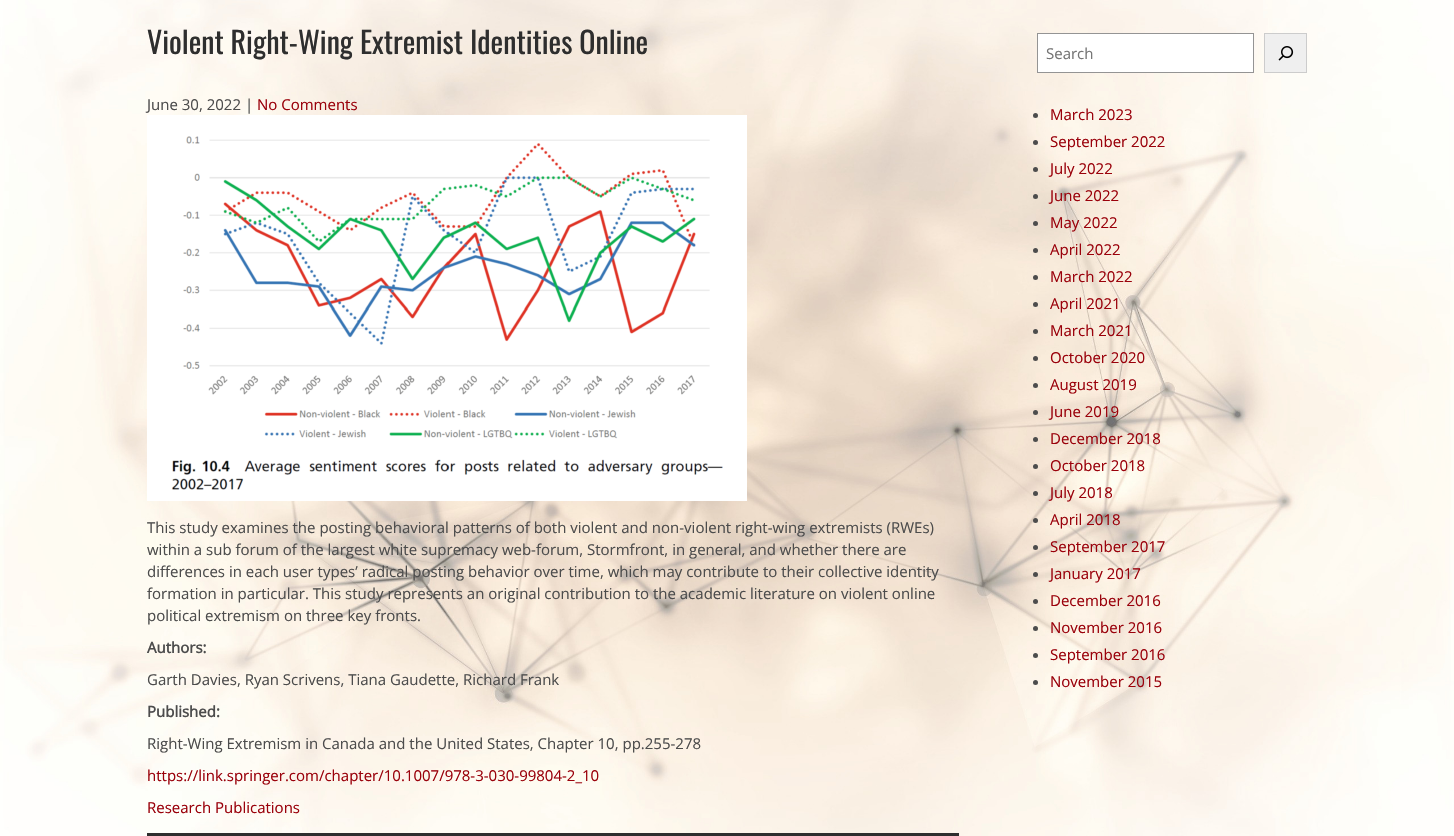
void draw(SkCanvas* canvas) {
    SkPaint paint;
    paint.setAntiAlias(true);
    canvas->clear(0xFFFFFFFF);
    canvas->drawImageRect(SkImages::DeferredFromEncodedData(SkData::MakeFromFileName("img1.png")), SkRect::MakeXYWH(0, 0, 1454, 836), SkSamplingOptions());
    SkFont font1(fontMgr->matchFamilyStyle("Oswald", SkFontStyle::Normal()), 30);
    font1.setSubpixel(true);
    paint.setColor(0xFF2E2E2E);
    canvas->drawString("Violent Right-Wing Extremist Identities Online", 147, 54, font1, paint);
    SkFont font2(fontMgr->matchFamilyStyle("Open Sans", SkFontStyle::Normal()), 15);
    font2.setSubpixel(true);
    paint.setColor(0xFF4C4C4C);
    canvas->drawString("June 30, 2022 |", 147, 110, font2, paint);
    paint.setColor(0xFF9A010B);
    canvas->drawString("No Comments", 257, 110, font2, paint);
    canvas->drawImageRect(SkImages::DeferredFromEncodedData(SkData::MakeFromFileName("img2.png")), SkRect::MakeXYWH(147, 115, 600, 386), SkSamplingOptions());
    paint.setColor(0xFF4C4C4C);
    canvas->drawString("This study examines the posting behavioral patterns of both violent and non-violent right-wing extremists (RWEs)", 147, 533, font2, paint);
    canvas->drawString("within a sub forum of the largest white supremacy web-forum, Stormfront, in general, and whether there are", 147, 555, font2, paint);
    canvas->drawString("differences in each user types’ radical posting behavior over time, which may contribute to their collective identity", 147, 577, font2, paint);
    canvas->drawString("formation in particular. This study represents an original contribution to the academic literature on violent online", 147, 599, font2, paint);
    canvas->drawString("political extremism on three key fronts.", 147, 621, font2, paint);
    SkFont font3(fontMgr->matchFamilyStyle("Open Sans", SkFontStyle::Bold()), 15);
    font3.setSubpixel(true);
    canvas->drawString("Authors:", 147, 653, font3, paint);
    canvas->drawString("Garth Davies, Ryan Scrivens, Tiana Gaudette, Richard Frank", 147, 685, font2, paint);
    canvas->drawString("Published:", 147, 717, font3, paint);
    canvas->drawString("Right-Wing Extremism in Canada and the United States, Chapter 10, pp.255-278", 147, 749, font2, paint);
    paint.setColor(0xFF9A010B);
    canvas->drawString("https://link.springer.com/chapter/10.1007/978-3-030-99804-2_10", 147, 781, font2, paint);
    canvas->drawString("Research Publications", 147, 813, font2, paint);
    paint.setColor(0xFF2E2E2E);
    canvas->drawRect(SkRect::MakeXYWH(147, 833, 812, 3), paint);
    paint.setColor(0xFFFFFFFF);
    canvas->drawRect(SkRect::MakeXYWH(1037.5f, 33.5f, 216, 39), paint);
    paint.setStyle(SkPaint::kStroke_Style);
    paint.setStrokeWidth(1);
    paint.setColor(0xFF949494);
    canvas->drawRect(SkRect::MakeXYWH(1037.5f, 33.5f, 216, 39), paint);
    paint.setStyle(SkPaint::kFill_Style);
    paint.setColor(0xFF757575);
    canvas->drawString("Search", 1046, 59, font2, paint);
    paint.setColor(0xFFEFEFEF);
    canvas->drawRect(SkRect::MakeXYWH(1264.5f, 33.5f, 42, 39), paint);
    paint.setStyle(SkPaint::kStroke_Style);
    paint.setColor(0xFFCCCCCC);
    canvas->drawRect(SkRect::MakeXYWH(1264.5f, 33.5f, 42, 39), paint);
    canvas->drawImageRect(SkImages::DeferredFromEncodedData(SkData::MakeFromFileName("img3.png")), SkRect::MakeXYWH(1278, 46, 16, 15), SkSamplingOptions());
    paint.setStyle(SkPaint::kFill_Style);
    paint.setColor(0xFF4C4C4C);
    canvas->drawCircle(1035.5f, 115.5f, 2.5f, paint);
    paint.setColor(0xFF9A010B);
    canvas->drawString("March 2023", 1050, 120, font2, paint);
    paint.setColor(0xFF4C4C4C);
    canvas->drawCircle(1035.5f, 142.5f, 2.5f, paint);
    paint.setColor(0xFF9A010B);
    canvas->drawString("September 2022", 1050, 147, font2, paint);
    paint.setColor(0xFF4C4C4C);
    canvas->drawCircle(1035.5f, 169.5f, 2.5f, paint);
    paint.setColor(0xFF9A010B);
    canvas->drawString("July 2022", 1050, 174, font2, paint);
    paint.setColor(0xFF4C4C4C);
    canvas->drawCircle(1035.5f, 196.5f, 2.5f, paint);
    paint.setColor(0xFF9A010B);
    canvas->drawString("June 2022", 1050, 201, font2, paint);
    paint.setColor(0xFF4C4C4C);
    canvas->drawCircle(1035.5f, 223.5f, 2.5f, paint);
    paint.setColor(0xFF9A010B);
    canvas->drawString("May 2022", 1050, 228, font2, paint);
    paint.setColor(0xFF4C4C4C);
    canvas->drawCircle(1035.5f, 250.5f, 2.5f, paint);
    paint.setColor(0xFF9A010B);
    canvas->drawString("April 2022", 1050, 255, font2, paint);
    paint.setColor(0xFF4C4C4C);
    canvas->drawCircle(1035.5f, 277.5f, 2.5f, paint);
    paint.setColor(0xFF9A010B);
    canvas->drawString("March 2022", 1050, 282, font2, paint);
    paint.setColor(0xFF4C4C4C);
    canvas->drawCircle(1035.5f, 304.5f, 2.5f, paint);
    paint.setColor(0xFF9A010B);
    canvas->drawString("April 2021", 1050, 309, font2, paint);
    paint.setColor(0xFF4C4C4C);
    canvas->drawCircle(1035.5f, 331.5f, 2.5f, paint);
    paint.setColor(0xFF9A010B);
    canvas->drawString("March 2021", 1050, 336, font2, paint);
    paint.setColor(0xFF4C4C4C);
    canvas->drawCircle(1035.5f, 358.5f, 2.5f, paint);
    paint.setColor(0xFF9A010B);
    canvas->drawString("October 2020", 1050, 363, font2, paint);
    paint.setColor(0xFF4C4C4C);
    canvas->drawCircle(1035.5f, 385.5f, 2.5f, paint);
    paint.setColor(0xFF9A010B);
    canvas->drawString("August 2019", 1050, 390, font2, paint);
    paint.setColor(0xFF4C4C4C);
    canvas->drawCircle(1035.5f, 412.5f, 2.5f, paint);
    paint.setColor(0xFF9A010B);
    canvas->drawString("June 2019", 1050, 417, font2, paint);
    paint.setColor(0xFF4C4C4C);
    canvas->drawCircle(1035.5f, 439.5f, 2.5f, paint);
    paint.setColor(0xFF9A010B);
    canvas->drawString("December 2018", 1050, 444, font2, paint);
    paint.setColor(0xFF4C4C4C);
    canvas->drawCircle(1035.5f, 466.5f, 2.5f, paint);
    paint.setColor(0xFF9A010B);
    canvas->drawString("October 2018", 1050, 471, font2, paint);
    paint.setColor(0xFF4C4C4C);
    canvas->drawCircle(1035.5f, 493.5f, 2.5f, paint);
    paint.setColor(0xFF9A010B);
    canvas->drawString("July 2018", 1050, 498, font2, paint);
    paint.setColor(0xFF4C4C4C);
    canvas->drawCircle(1035.5f, 520.5f, 2.5f, paint);
    paint.setColor(0xFF9A010B);
    canvas->drawString("April 2018", 1050, 525, font2, paint);
    paint.setColor(0xFF4C4C4C);
    canvas->drawCircle(1035.5f, 547.5f, 2.5f, paint);
    paint.setColor(0xFF9A010B);
    canvas->drawString("September 2017", 1050, 552, font2, paint);
    paint.setColor(0xFF4C4C4C);
    canvas->drawCircle(1035.5f, 574.5f, 2.5f, paint);
    paint.setColor(0xFF9A010B);
    canvas->drawString("January 2017", 1050, 579, font2, paint);
    paint.setColor(0xFF4C4C4C);
    canvas->drawCircle(1035.5f, 601.5f, 2.5f, paint);
    paint.setColor(0xFF9A010B);
    canvas->drawString("December 2016", 1050, 606, font2, paint);
    paint.setColor(0xFF4C4C4C);
    canvas->drawCircle(1035.5f, 628.5f, 2.5f, paint);
    paint.setColor(0xFF9A010B);
    canvas->drawString("November 2016", 1050, 633, font2, paint);
    paint.setColor(0xFF4C4C4C);
    canvas->drawCircle(1035.5f, 655.5f, 2.5f, paint);
    paint.setColor(0xFF9A010B);
    canvas->drawString("September 2016", 1050, 660, font2, paint);
    paint.setColor(0xFF4C4C4C);
    canvas->drawCircle(1035.5f, 682.5f, 2.5f, paint);
    paint.setColor(0xFF9A010B);
    canvas->drawString("November 2015", 1050, 687, font2, paint);
}
